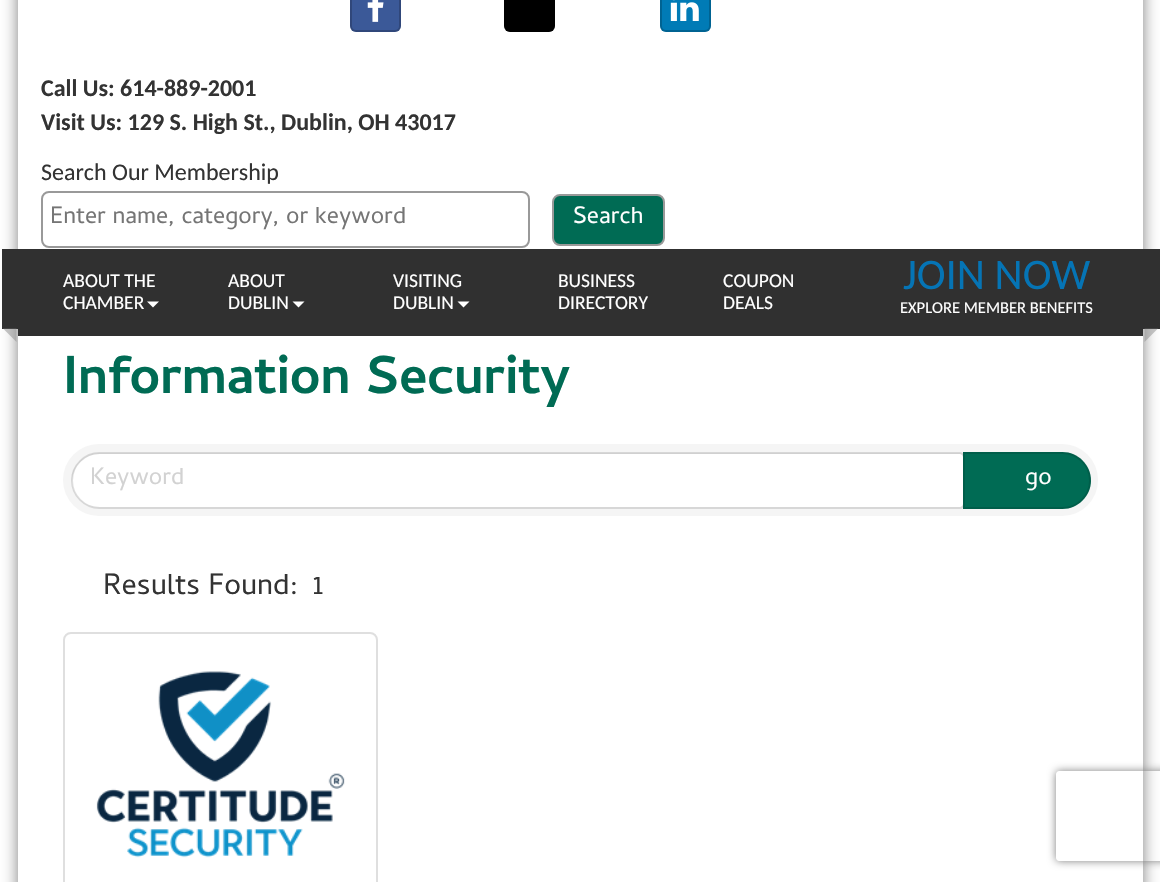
void draw(SkCanvas* canvas) {
    SkPaint paint;
    paint.setAntiAlias(true);
    canvas->clear(0xFFFFFFFF);
    canvas->save();
    canvas->clipPath(SkPathBuilder(SkPathFillType::kEvenOdd).moveTo(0, 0).lineTo(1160, 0).lineTo(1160, 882).lineTo(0, 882).close().moveTo(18, -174).lineTo(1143, -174).lineTo(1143, 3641).lineTo(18, 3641).close().detach(), true);
    paint.setColor(0x80000000);
    paint.setMaskFilter(SkMaskFilter::MakeBlur(kNormal_SkBlurStyle, 7.5f));
    canvas->drawRect(SkRect::MakeXYWH(18, -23, 1125, 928), paint);
    paint.setMaskFilter(nullptr);
    canvas->restore();
    paint.setColor(0xFF3B5998);
    canvas->drawRoundRect(SkRect::MakeXYWH(350, -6, 51, 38), 6, 6, paint);
    paint.setStyle(SkPaint::kStroke_Style);
    paint.setStrokeWidth(2);
    paint.setColor(0x33000000);
    canvas->drawRoundRect(SkRect::MakeXYWH(351, -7, 49, 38), 5, 5, paint);
    canvas->drawImageRect(SkImages::DeferredFromEncodedData(SkData::MakeFromFileName("img1.png")), SkRect::MakeXYWH(367, 0, 17, 22), SkSamplingOptions());
    paint.setStyle(SkPaint::kFill_Style);
    paint.setColor(0xFF000000);
    canvas->drawRoundRect(SkRect::MakeXYWH(504, -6, 51, 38), 6, 6, paint);
    paint.setStyle(SkPaint::kStroke_Style);
    paint.setColor(0x33000000);
    canvas->drawRoundRect(SkRect::MakeXYWH(505, -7, 49, 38), 5, 5, paint);
    paint.setStyle(SkPaint::kFill_Style);
    paint.setColor(0xFF007BB6);
    canvas->drawRoundRect(SkRect::MakeXYWH(660, -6, 51, 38), 6, 6, paint);
    paint.setStyle(SkPaint::kStroke_Style);
    paint.setColor(0x33000000);
    canvas->drawRoundRect(SkRect::MakeXYWH(661, -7, 49, 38), 5, 5, paint);
    canvas->drawImageRect(SkImages::DeferredFromEncodedData(SkData::MakeFromFileName("img2.png")), SkRect::MakeXYWH(670, 0, 29, 21), SkSamplingOptions());
    SkFont font1(fontMgr->matchFamilyStyle("Carlito", SkFontStyle::Bold()), 24);
    font1.setSubpixel(true);
    paint.setStyle(SkPaint::kFill_Style);
    paint.setColor(0xFF333333);
    canvas->drawString("Call Us: 614-889-2001", 41, 96, font1, paint);
    canvas->drawString("Visit Us: 129 S. High St., Dublin, OH 43017", 41, 130, font1, paint);
    SkFont font2(fontMgr->matchFamilyStyle("Carlito", SkFontStyle::Normal()), 24);
    font2.setSubpixel(true);
    canvas->drawString("Search Our Membership", 41, 180, font2, paint);
    paint.setStyle(SkPaint::kStroke_Style);
    paint.setColor(0xFF999999);
    canvas->drawRoundRect(SkRect::MakeXYWH(42, 192, 487, 55), 7, 7, paint);
    SkFont font3(fontMgr->matchFamilyStyle("Cambay", SkFontStyle::Normal()), 24);
    font3.setSubpixel(true);
    paint.setStyle(SkPaint::kFill_Style);
    paint.setColor(0xFF757575);
    canvas->drawString("Enter name, category, or keyword", 50, 223, font3, paint);
    paint.setColor(0xFF006B54);
    canvas->drawRoundRect(SkRect::MakeXYWH(553, 195, 111, 50), 7, 7, paint);
    paint.setStyle(SkPaint::kStroke_Style);
    paint.setColor(0xFF999999);
    canvas->drawRoundRect(SkRect::MakeXYWH(553, 195, 111, 50), 7, 7, paint);
    paint.setStyle(SkPaint::kFill_Style);
    paint.setColor(0xFFFFFFFF);
    canvas->drawString("Search", 573, 223, font3, paint);
    paint.setColor(0xFF303030);
    canvas->drawRect(SkRect::MakeXYWH(18, 249, 1125, 87), paint);
    canvas->drawRect(SkRect::MakeXYWH(2, 249, 16, 80), paint);
    paint.setColor(0x7A888888);
    canvas->drawPath(SkPathBuilder().moveTo(16.5f, 328.5f).lineTo(16.5f, 342).lineTo(3, 328.5f).close().detach(), paint);
    SkFont font4(fontMgr->matchFamilyStyle("Carlito", SkFontStyle::Normal()), 19.5f);
    font4.setSubpixel(true);
    paint.setColor(0xFFFFFFFF);
    canvas->drawString("ABOUT THE", 63, 287, font4, paint);
    canvas->drawString("CHAMBER", 63, 309, font4, paint);
    canvas->drawPath(SkPathBuilder().moveTo(147, 301.5f).lineTo(159, 301.5f).lineTo(153, 307.5f).close().detach(), paint);
    canvas->drawString("ABOUT", 228, 287, font4, paint);
    canvas->drawString("DUBLIN", 228, 309, font4, paint);
    canvas->drawPath(SkPathBuilder().moveTo(292.5f, 301.5f).lineTo(304.5f, 301.5f).lineTo(298.5f, 307.5f).close().detach(), paint);
    canvas->drawString("VISITING", 393, 287, font4, paint);
    canvas->drawString("DUBLIN", 393, 309, font4, paint);
    canvas->drawPath(SkPathBuilder().moveTo(457.5f, 301.5f).lineTo(469.5f, 301.5f).lineTo(463.5f, 307.5f).close().detach(), paint);
    canvas->drawString("BUSINESS", 558, 287, font4, paint);
    canvas->drawString("DIRECTORY", 558, 309, font4, paint);
    canvas->drawString("COUPON", 723, 287, font4, paint);
    canvas->drawString("DEALS", 723, 309, font4, paint);
    SkFont font5(fontMgr->matchFamilyStyle("Carlito", SkFontStyle::Normal()), 43.5f);
    font5.setSubpixel(true);
    paint.setColor(0xFF0574B5);
    canvas->drawString("JOIN NOW", 903, 289, font5, paint);
    SkFont font6(fontMgr->matchFamilyStyle("Carlito", SkFontStyle::Normal()), 16.5f);
    font6.setSubpixel(true);
    paint.setColor(0xFFFFFFFF);
    canvas->drawString("EXPLORE MEMBER BENEFITS", 900, 313, font6, paint);
    paint.setColor(0xFF303030);
    canvas->drawRect(SkRect::MakeXYWH(1143, 249, 17, 80), paint);
    paint.setColor(0x7A888888);
    canvas->drawPath(SkPathBuilder().moveTo(1144.5f, 328.5f).lineTo(1158, 328.5f).lineTo(1144.5f, 342).close().detach(), paint);
    SkFont font7(fontMgr->matchFamilyStyle("Cambay", SkFontStyle::Bold()), 54);
    font7.setSubpixel(true);
    paint.setColor(0xFF006B54);
    canvas->drawString("Information Security", 63, 393, font7, paint);
    paint.setColor(0xFFF5F5F5);
    canvas->drawRoundRect(SkRect::MakeXYWH(63, 444, 1035, 72), 36, 36, paint);
    paint.setColor(0xFFFFFFFF);
    canvas->drawPath(SkPathBuilder().moveTo(99, 453).lineTo(960, 453).cubicTo(961.5f, 453, 963, 454.5f, 963, 456).lineTo(963, 504).cubicTo(963, 505.5f, 961.5f, 507, 960, 507).lineTo(99, 507).cubicTo(84, 507, 72, 495, 72, 480).cubicTo(72, 465, 84, 453, 99, 453).close().detach(), paint);
    paint.setColor(0x12000000);
    canvas->drawPath(SkPathBuilder().moveTo(99, 454).lineTo(960, 454).cubicTo(962, 454, 963, 456, 963, 458).cubicTo(963, 457, 963, 455, 962, 454).lineTo(960, 453).lineTo(99, 453).cubicTo(84, 453, 71, 466, 72, 481).cubicTo(73, 466, 84, 454, 99, 454).close().detach(), paint);
    paint.setStyle(SkPaint::kStroke_Style);
    paint.setColor(0x1F000000);
    canvas->drawPath(SkPathBuilder().moveTo(99.5f, 453).lineTo(960, 453).cubicTo(962, 453, 964, 455, 964, 457).lineTo(964, 504).cubicTo(964, 506, 962, 508, 960, 508).lineTo(99.5f, 508).cubicTo(84.5f, 508, 72, 495.5f, 72, 480.5f).cubicTo(72, 465.5f, 84.5f, 453, 99.5f, 453).close().detach(), paint);
    paint.setStyle(SkPaint::kFill_Style);
    paint.setColor(0xFFD2D2D2);
    canvas->drawString("Keyword", 90, 484, font3, paint);
    paint.setColor(0xFF006B54);
    canvas->drawPath(SkPathBuilder().moveTo(963, 452).lineTo(1062.5f, 452).cubicTo(1078, 452, 1091, 465, 1091, 480.5f).cubicTo(1091, 496, 1078, 509, 1062.5f, 509).lineTo(963, 509).close().detach(), paint);
    paint.setStyle(SkPaint::kStroke_Style);
    paint.setColor(0x1F000000);
    canvas->drawPath(SkPathBuilder().moveTo(964, 453).lineTo(1062.5f, 453).cubicTo(1077.5f, 453, 1090, 465.5f, 1090, 480.5f).cubicTo(1090, 495.5f, 1077.5f, 508, 1062.5f, 508).lineTo(964, 508).close().detach(), paint);
    paint.setStyle(SkPaint::kFill_Style);
    paint.setColor(0xFFFFFFFF);
    canvas->drawString("go", 1025, 484, font3, paint);
    SkFont font8(fontMgr->matchFamilyStyle("Cambay", SkFontStyle::Normal()), 30);
    font8.setSubpixel(true);
    paint.setColor(0xFF333333);
    canvas->drawString("Results Found:", 103, 594, font8, paint);
    canvas->drawString("1", 313, 594, font8, paint);
    paint.setStyle(SkPaint::kStroke_Style);
    paint.setColor(0xFFDFDFDF);
    canvas->drawRoundRect(SkRect::MakeXYWH(64, 633, 313, 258), 7, 7, paint);
    canvas->drawImageRect(SkImages::DeferredFromEncodedData(SkData::MakeFromFileName("img3.png")), SkRect::MakeXYWH(96, 671, 249, 187), SkSamplingOptions());
    canvas->save();
    canvas->clipPath(SkPathBuilder(SkPathFillType::kEvenOdd).moveTo(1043, 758).lineTo(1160, 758).lineTo(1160, 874).lineTo(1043, 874).close().moveTo(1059, 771).lineTo(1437, 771).cubicTo(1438.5f, 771, 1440, 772.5f, 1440, 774).lineTo(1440, 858).cubicTo(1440, 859.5f, 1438.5f, 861, 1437, 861).lineTo(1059, 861).cubicTo(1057.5f, 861, 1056, 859.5f, 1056, 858).lineTo(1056, 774).cubicTo(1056, 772.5f, 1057.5f, 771, 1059, 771).close().detach(), true);
    paint.setStyle(SkPaint::kFill_Style);
    paint.setColor(0xFF808080);
    paint.setMaskFilter(SkMaskFilter::MakeBlur(kNormal_SkBlurStyle, 4));
    canvas->drawRoundRect(SkRect::MakeXYWH(1056, 771, 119, 90), 3, 3, paint);
    paint.setMaskFilter(nullptr);
    canvas->restore();
}
